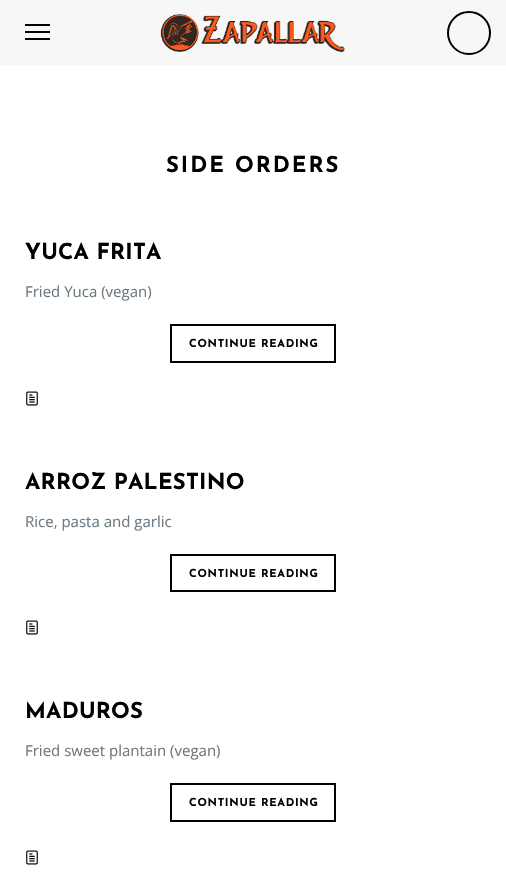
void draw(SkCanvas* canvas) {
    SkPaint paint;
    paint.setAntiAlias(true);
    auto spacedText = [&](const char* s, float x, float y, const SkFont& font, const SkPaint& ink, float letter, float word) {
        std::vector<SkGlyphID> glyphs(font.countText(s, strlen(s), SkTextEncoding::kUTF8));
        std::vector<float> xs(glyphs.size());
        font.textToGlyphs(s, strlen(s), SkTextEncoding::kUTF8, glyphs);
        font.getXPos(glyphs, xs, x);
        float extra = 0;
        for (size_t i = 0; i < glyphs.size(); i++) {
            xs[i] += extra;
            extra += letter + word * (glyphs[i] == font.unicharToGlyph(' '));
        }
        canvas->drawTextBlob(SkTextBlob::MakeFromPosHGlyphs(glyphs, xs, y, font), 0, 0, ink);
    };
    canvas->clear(0xFFFFFFFF);
    paint.setColor(0xFFF7F7F7);
    canvas->drawRect(SkRect::MakeXYWH(0, 0, 506, 65), paint);
    canvas->drawImageRect(SkImages::DeferredFromEncodedData(SkData::MakeFromFileName("img1.png")), SkRect::MakeXYWH(160, 14, 185, 38), SkSamplingOptions());
    paint.setColor(0xFF000000);
    canvas->drawRect(SkRect::MakeXYWH(25, 31, 25, 2), paint);
    canvas->drawRect(SkRect::MakeXYWH(25, 24, 25, 2), paint);
    canvas->drawRect(SkRect::MakeXYWH(25, 38, 25, 2), paint);
    paint.setStyle(SkPaint::kStroke_Style);
    paint.setStrokeWidth(2);
    canvas->drawCircle(469, 33, 21, paint);
    SkFont font1(fontMgr->matchFamilyStyle("Josefin Sans", SkFontStyle::Bold()), 22);
    font1.setSubpixel(true);
    paint.setStyle(SkPaint::kFill_Style);
    spacedText("SIDE ORDERS", 166, 172, font1, paint, 2, 0);
    spacedText("YUCA FRITA", 25, 259, font1, paint, 0.25f, 0);
    SkFont font2(fontMgr->matchFamilyStyle("Open Sans", SkFontStyle::Normal()), 15);
    font2.setSubpixel(true);
    paint.setColor(0xFF6C7880);
    canvas->drawString("Fried Yuca (vegan)", 25, 297, font2, paint);
    paint.setStyle(SkPaint::kStroke_Style);
    paint.setColor(0xFF000000);
    canvas->drawRect(SkRect::MakeXYWH(171, 325, 164, 37), paint);
    SkFont font3(fontMgr->matchFamilyStyle("Josefin Sans", SkFontStyle::Bold()), 11);
    font3.setSubpixel(true);
    paint.setStyle(SkPaint::kFill_Style);
    spacedText("CONTINUE READING", 189, 347, font3, paint, 0.75f, 0);
    canvas->drawImageRect(SkImages::DeferredFromEncodedData(SkData::MakeFromFileName("img2.png")), SkRect::MakeXYWH(26, 391, 12, 15), SkSamplingOptions());
    spacedText("ARROZ PALESTINO", 25, 489, font1, paint, 0.25f, 0);
    paint.setColor(0xFF6C7880);
    canvas->drawString("Rice, pasta and garlic", 25, 527, font2, paint);
    paint.setStyle(SkPaint::kStroke_Style);
    paint.setColor(0xFF000000);
    canvas->drawRect(SkRect::MakeXYWH(171, 555, 164, 36), paint);
    paint.setStyle(SkPaint::kFill_Style);
    spacedText("CONTINUE READING", 189, 577, font3, paint, 0.75f, 0);
    canvas->drawImageRect(SkImages::DeferredFromEncodedData(SkData::MakeFromFileName("img2.png")), SkRect::MakeXYWH(26, 620, 12, 15), SkSamplingOptions());
    spacedText("MADUROS", 25, 718, font1, paint, 0.25f, 0);
    paint.setColor(0xFF6C7880);
    canvas->drawString("Fried sweet plantain (vegan)", 25, 756, font2, paint);
    paint.setStyle(SkPaint::kStroke_Style);
    paint.setColor(0xFF000000);
    canvas->drawRect(SkRect::MakeXYWH(171, 784, 164, 37), paint);
    paint.setStyle(SkPaint::kFill_Style);
    spacedText("CONTINUE READING", 189, 806, font3, paint, 0.75f, 0);
    canvas->drawImageRect(SkImages::DeferredFromEncodedData(SkData::MakeFromFileName("img2.png")), SkRect::MakeXYWH(26, 850, 12, 15), SkSamplingOptions());
}
